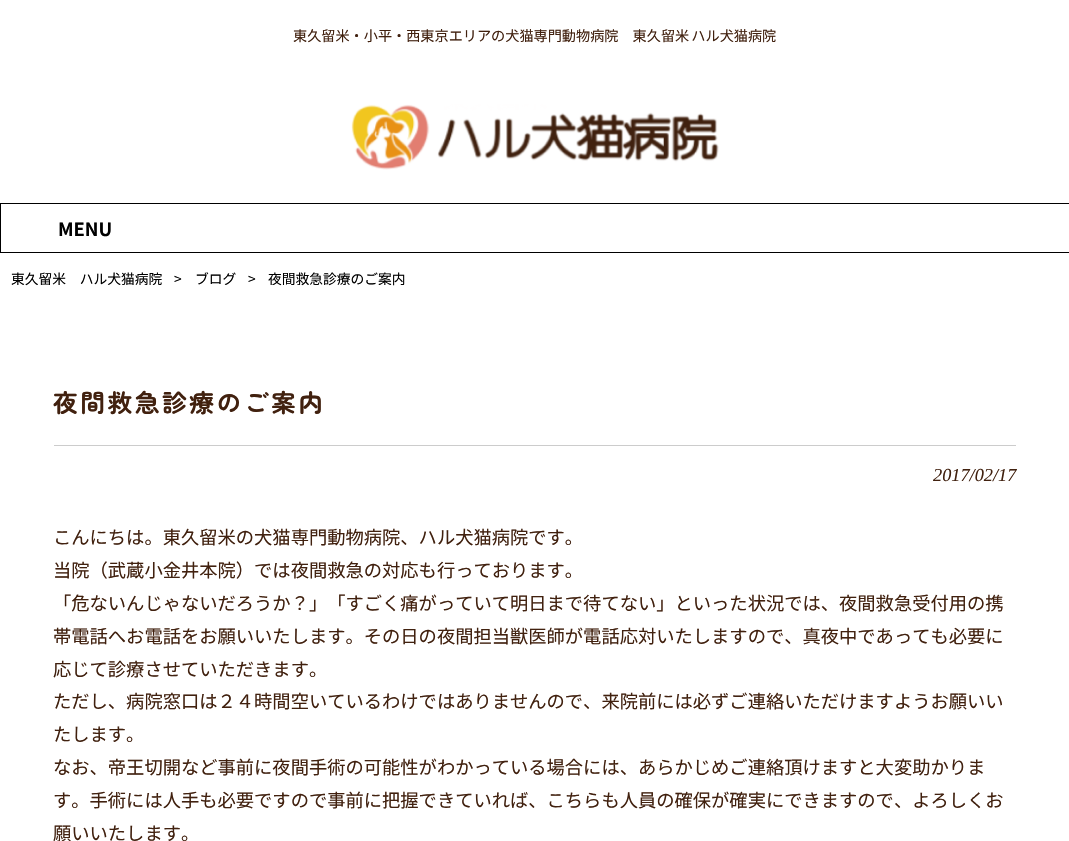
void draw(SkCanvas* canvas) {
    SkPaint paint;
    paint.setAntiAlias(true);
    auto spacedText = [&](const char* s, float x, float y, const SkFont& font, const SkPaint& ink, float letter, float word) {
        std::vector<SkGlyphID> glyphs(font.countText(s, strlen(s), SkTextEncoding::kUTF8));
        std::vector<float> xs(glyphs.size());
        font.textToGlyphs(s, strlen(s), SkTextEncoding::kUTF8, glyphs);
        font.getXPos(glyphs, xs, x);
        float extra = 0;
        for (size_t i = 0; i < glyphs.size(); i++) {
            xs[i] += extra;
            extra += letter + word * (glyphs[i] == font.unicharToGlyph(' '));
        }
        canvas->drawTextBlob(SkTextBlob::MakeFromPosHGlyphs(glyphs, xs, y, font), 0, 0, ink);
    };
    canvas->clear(0xFFFFFFFF);
    SkFont font1(fontMgr->matchFamilyStyle("Noto Sans JP", SkFontStyle::Normal()), 14.15f);
    font1.setSubpixel(true);
    paint.setColor(0xFF41210F);
    spacedText("東久留米・小平・西東京エリアの犬猫専門動物病院　東久留米 ハル犬猫病院", 293, 41, font1, paint, 0, -1);
    canvas->drawImageRect(SkImages::DeferredFromEncodedData(SkData::MakeFromFileName("img1.png")), SkRect::MakeXYWH(351, 104, 368, 66), SkSamplingOptions());
    paint.setStyle(SkPaint::kStroke_Style);
    paint.setStrokeWidth(1);
    paint.setColor(0xFF000000);
    canvas->drawRect(SkRect::MakeXYWH(0.5f, 203.5f, 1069, 49), paint);
    SkFont font2(fontMgr->matchFamilyStyle("Noto Sans JP", SkFontStyle::Bold()), 18.28f);
    font2.setSubpixel(true);
    paint.setStyle(SkPaint::kFill_Style);
    canvas->drawString("MENU", 58, 236, font2, paint);
    SkFont font3(fontMgr->matchFamilyStyle("Noto Sans JP", SkFontStyle::Normal()), 13.75f);
    font3.setSubpixel(true);
    canvas->drawString("東久留米　ハル犬猫病院", 11, 284, font3, paint);
    canvas->drawString(">", 174, 284, font3, paint);
    canvas->drawString("ブログ", 195, 284, font3, paint);
    canvas->drawString(">", 248, 284, font3, paint);
    canvas->drawString("夜間救急診療のご案内", 268, 284, font3, paint);
    SkFont font4(fontMgr->matchFamilyStyle("Zen Maru Gothic", SkFontStyle::Bold()), 24.75f);
    font4.setSubpixel(true);
    paint.setColor(0xFF41210F);
    spacedText("夜間救急診療のご案内", 53, 412, font4, paint, 2.5f, 0);
    paint.setColor(0xFFCCCCCC);
    canvas->drawRect(SkRect::MakeXYWH(54, 445, 962, 1), paint);
    SkFont font5(fontMgr->matchFamilyStyle("Liberation Serif", SkFontStyle::Italic()), 18.28f);
    font5.setSubpixel(true);
    paint.setColor(0xFF41210F);
    canvas->drawString("2017/02/17", 933, 481, font5, paint);
    SkFont font6(fontMgr->matchFamilyStyle("Noto Sans JP", SkFontStyle::Normal()), 18.28f);
    font6.setSubpixel(true);
    canvas->drawString("こんにちは。東久留米の犬猫専門動物病院、ハル犬猫病院です。", 53, 544, font6, paint);
    canvas->drawString("当院（武蔵小金井本院）では夜間救急の対応も行っております。", 53, 577, font6, paint);
    canvas->drawString("「危ないんじゃないだろうか？」「すごく痛がっていて明日まで待てない」といった状況では、夜間救急受付用の携", 53, 610, font6, paint);
    canvas->drawString("帯電話へお電話をお願いいたします。その日の夜間担当獣医師が電話応対いたしますので、真夜中であっても必要に", 53, 643, font6, paint);
    canvas->drawString("応じて診療させていただきます。", 53, 676, font6, paint);
    canvas->drawString("ただし、病院窓口は２４時間空いているわけではありませんので、来院前には必ずご連絡いただけますようお願いい", 53, 708, font6, paint);
    canvas->drawString("たします。", 53, 741, font6, paint);
    canvas->drawString("なお、帝王切開など事前に夜間手術の可能性がわかっている場合には、あらかじめご連絡頂けますと大変助かりま", 53, 774, font6, paint);
    canvas->drawString("す。手術には人手も必要ですので事前に把握できていれば、こちらも人員の確保が確実にできますので、よろしくお", 53, 807, font6, paint);
    canvas->drawString("願いいたします。", 53, 840, font6, paint);
}
